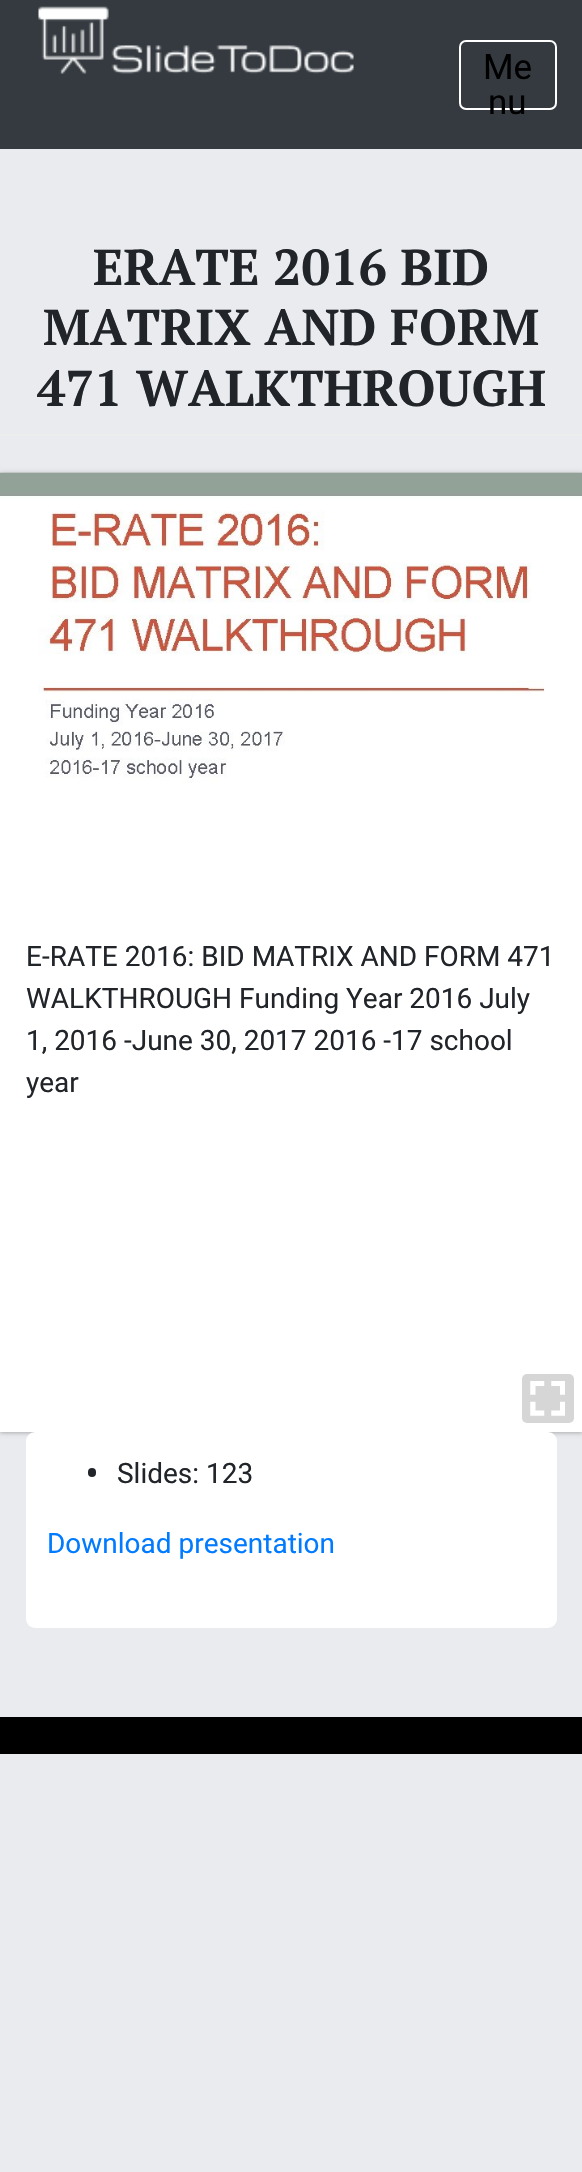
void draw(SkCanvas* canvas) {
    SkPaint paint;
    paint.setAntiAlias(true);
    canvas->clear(0xFFE9EBEE);
    paint.setColor(0xFF343A40);
    canvas->drawRect(SkRect::MakeXYWH(0, 0, 582, 149), paint);
    canvas->drawImageRect(SkImages::DeferredFromEncodedData(SkData::MakeFromFileName("img1.png")), SkRect::MakeXYWH(38, 6, 316, 68), SkSamplingOptions());
    paint.setStyle(SkPaint::kStroke_Style);
    paint.setStrokeWidth(2);
    paint.setColor(0xFFFFFFFF);
    canvas->drawRoundRect(SkRect::MakeXYWH(460, 41, 96, 68), 6, 6, paint);
    SkFont font1(fontMgr->matchFamilyStyle("Roboto", SkFontStyle::Normal()), 35);
    font1.setSubpixel(true);
    paint.setStyle(SkPaint::kFill_Style);
    paint.setColor(0xFF000000);
    canvas->drawString("Me", 483, 79, font1, paint);
    canvas->drawString("nu", 488, 114, font1, paint);
    paint.setColor(0xFFEDEDED);
    canvas->drawRect(SkRect::MakeXYWH(0, 434, 582, 2), paint);
    SkFont font2(fontMgr->matchFamilyStyle("PT Serif", SkFontStyle::Bold()), 50.4f);
    font2.setSubpixel(true);
    paint.setColor(0xFF212529);
    canvas->drawString("ERATE 2016 BID", 93, 285, font2, paint);
    canvas->drawString("MATRIX AND FORM", 43, 345, font2, paint);
    canvas->drawString("471 WALKTHROUGH", 37, 406, font2, paint);
    paint.setColor(0x1A000000);
    paint.setMaskFilter(SkMaskFilter::MakeBlur(kNormal_SkBlurStyle, 2.5f));
    canvas->drawRect(SkRect::MakeXYWH(0, 473, 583, 959), paint);
    paint.setMaskFilter(nullptr);
    paint.setColor(0x33000000);
    paint.setMaskFilter(SkMaskFilter::MakeBlur(kNormal_SkBlurStyle, 2));
    canvas->drawRect(SkRect::MakeXYWH(0, 474, 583, 959), paint);
    paint.setMaskFilter(nullptr);
    paint.setColor(0xFFFFFFFF);
    canvas->drawRect(SkRect::MakeXYWH(0, 783, 582, 649), paint);
    canvas->drawImageRect(SkImages::DeferredFromEncodedData(SkData::MakeFromFileName("img2.png")), SkRect::MakeXYWH(0, 472, 582, 311), SkSamplingOptions());
    SkFont font3(fontMgr->matchFamilyStyle("Roboto", SkFontStyle::Normal()), 28);
    font3.setSubpixel(true);
    paint.setColor(0xFF212529);
    canvas->drawString("E-RATE 2016: BID MATRIX AND FORM 471", 26, 966, font3, paint);
    canvas->drawString("WALKTHROUGH Funding Year 2016 July", 26, 1008, font3, paint);
    canvas->drawString("1, 2016 -June 30, 2017 2016 -17 school", 26, 1050, font3, paint);
    canvas->drawString("year", 26, 1092, font3, paint);
    paint.setColor(0xFFD6D6D6);
    canvas->drawRoundRect(SkRect::MakeXYWH(522, 1374, 52, 49), 5, 5, paint);
    canvas->drawImageRect(SkImages::DeferredFromEncodedData(SkData::MakeFromFileName("img3.png")), SkRect::MakeXYWH(530, 1381, 35, 35), SkSamplingOptions());
    paint.setColor(0xFFFFFFFF);
    canvas->drawRoundRect(SkRect::MakeXYWH(26, 1432, 531, 196), 9, 9, paint);
    paint.setColor(0xFF212529);
    canvas->drawRoundRect(SkRect::MakeXYWH(88, 1468, 8, 9), 4, 4, paint);
    canvas->drawString("Slides: 123", 117, 1483, font3, paint);
    paint.setColor(0xFF007BFF);
    canvas->drawString("Download presentation", 47, 1553, font3, paint);
    paint.setColor(0xFF000000);
    canvas->drawRect(SkRect::MakeXYWH(0, 1717, 582, 37), paint);
}
